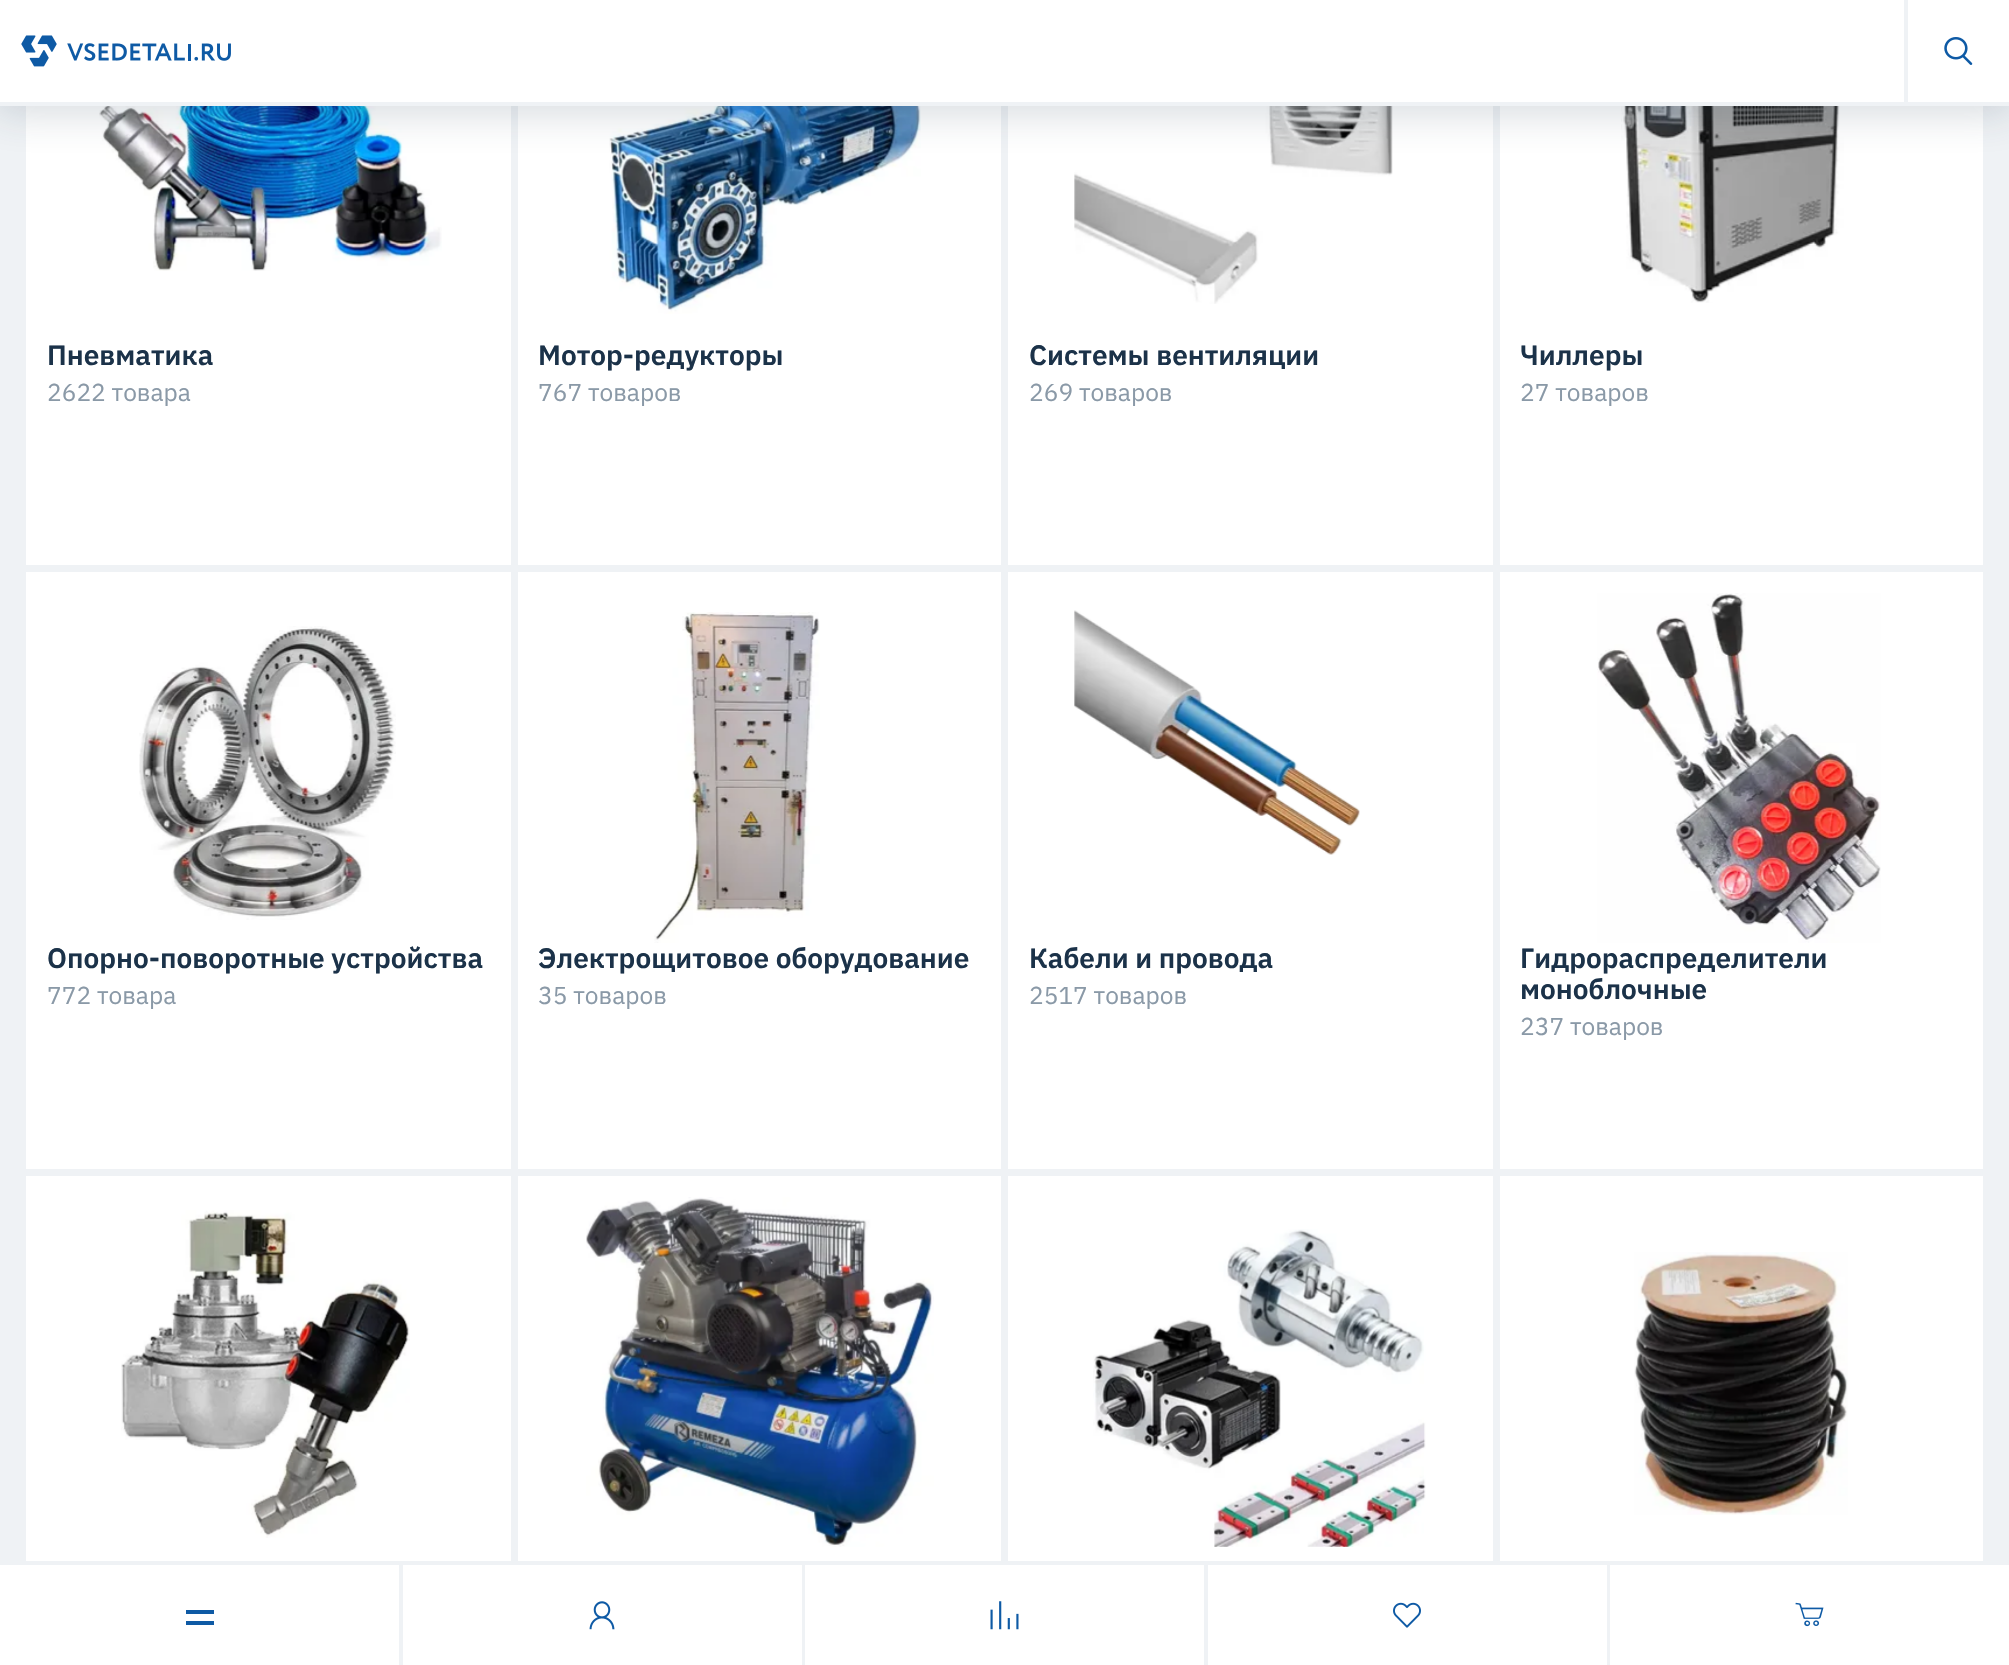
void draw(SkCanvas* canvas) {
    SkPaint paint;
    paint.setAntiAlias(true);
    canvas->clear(0xFFEFF2F5);
    paint.setColor(0xFFFFFFFF);
    canvas->drawRect(SkRect::MakeXYWH(26, 106, 485, 459), paint);
    canvas->drawImageRect(SkImages::DeferredFromEncodedData(SkData::MakeFromFileName("img3.png")), SkRect::MakeXYWH(99, 106, 343, 165), SkSamplingOptions());
    canvas->drawRect(SkRect::MakeXYWH(518, 106, 483, 459), paint);
    canvas->drawImageRect(SkImages::DeferredFromEncodedData(SkData::MakeFromFileName("img4.png")), SkRect::MakeXYWH(609, 106, 312, 208), SkSamplingOptions());
    canvas->drawRect(SkRect::MakeXYWH(1008, 106, 485, 459), paint);
    canvas->drawImageRect(SkImages::DeferredFromEncodedData(SkData::MakeFromFileName("img5.png")), SkRect::MakeXYWH(1074, 106, 340, 198), SkSamplingOptions());
    canvas->drawRect(SkRect::MakeXYWH(1500, 106, 483, 459), paint);
    canvas->drawImageRect(SkImages::DeferredFromEncodedData(SkData::MakeFromFileName("img6.png")), SkRect::MakeXYWH(1621, 106, 223, 197), SkSamplingOptions());
    paint.setColor(0x33223C50);
    paint.setMaskFilter(SkMaskFilter::MakeBlur(kNormal_SkBlurStyle, 22));
    canvas->drawRect(SkRect::MakeXYWH(-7, -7, 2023, 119), paint);
    paint.setMaskFilter(nullptr);
    paint.setColor(0xFFFFFFFF);
    canvas->drawRect(SkRect::MakeXYWH(0, 0, 2009, 102), paint);
    paint.setColor(0xFFEFF2F5);
    canvas->drawRect(SkRect::MakeXYWH(0, 102, 2009, 4), paint);
    canvas->drawImageRect(SkImages::DeferredFromEncodedData(SkData::MakeFromFileName("img1.png")), SkRect::MakeXYWH(21, 35, 210, 32), SkSamplingOptions());
    canvas->drawRect(SkRect::MakeXYWH(1904, 0, 4, 102), paint);
    canvas->drawImageRect(SkImages::DeferredFromEncodedData(SkData::MakeFromFileName("img2.png")), SkRect::MakeXYWH(1944, 37, 29, 28), SkSamplingOptions());
    SkFont font1(fontMgr->matchFamilyStyle("IBM Plex Sans", SkFontStyle(600, SkFontStyle::kNormal_Width, SkFontStyle::kUpright_Slant)), 28);
    font1.setSubpixel(true);
    paint.setColor(0xFF1B3249);
    canvas->drawString("Пневматика", 47, 365, font1, paint);
    SkFont font2(fontMgr->matchFamilyStyle("IBM Plex Sans", SkFontStyle::Normal()), 24.5f);
    font2.setSubpixel(true);
    paint.setColor(0xFF8A99A7);
    canvas->drawString("2622 товара", 47, 401, font2, paint);
    paint.setColor(0xFF1B3249);
    canvas->drawString("Мотор-редукторы", 538, 365, font1, paint);
    paint.setColor(0xFF8A99A7);
    canvas->drawString("767 товаров", 538, 401, font2, paint);
    paint.setColor(0xFF1B3249);
    canvas->drawString("Системы вентиляции", 1029, 365, font1, paint);
    paint.setColor(0xFF8A99A7);
    canvas->drawString("269 товаров", 1029, 401, font2, paint);
    paint.setColor(0xFF1B3249);
    canvas->drawString("Чиллеры", 1520, 365, font1, paint);
    paint.setColor(0xFF8A99A7);
    canvas->drawString("27 товаров", 1520, 401, font2, paint);
    paint.setColor(0xFFFFFFFF);
    canvas->drawRect(SkRect::MakeXYWH(26, 572, 485, 597), paint);
    canvas->drawImageRect(SkImages::DeferredFromEncodedData(SkData::MakeFromFileName("img7.png")), SkRect::MakeXYWH(139, 626, 257, 294), SkSamplingOptions());
    paint.setColor(0xFF1B3249);
    canvas->drawString("Опорно-поворотные устройства", 47, 968, font1, paint);
    paint.setColor(0xFF8A99A7);
    canvas->drawString("772 товара", 47, 1004, font2, paint);
    paint.setColor(0xFFFFFFFF);
    canvas->drawRect(SkRect::MakeXYWH(518, 572, 483, 597), paint);
    canvas->drawImageRect(SkImages::DeferredFromEncodedData(SkData::MakeFromFileName("img8.png")), SkRect::MakeXYWH(654, 612, 166, 331), SkSamplingOptions());
    paint.setColor(0xFF1B3249);
    canvas->drawString("Электрощитовое оборудование", 538, 968, font1, paint);
    paint.setColor(0xFF8A99A7);
    canvas->drawString("35 товаров", 538, 1004, font2, paint);
    paint.setColor(0xFFFFFFFF);
    canvas->drawRect(SkRect::MakeXYWH(1008, 572, 485, 597), paint);
    canvas->drawImageRect(SkImages::DeferredFromEncodedData(SkData::MakeFromFileName("img9.png")), SkRect::MakeXYWH(1074, 610, 286, 245), SkSamplingOptions());
    paint.setColor(0xFF1B3249);
    canvas->drawString("Кабели и провода", 1029, 968, font1, paint);
    paint.setColor(0xFF8A99A7);
    canvas->drawString("2517 товаров", 1029, 1004, font2, paint);
    paint.setColor(0xFFFFFFFF);
    canvas->drawRect(SkRect::MakeXYWH(1500, 572, 483, 597), paint);
    canvas->drawImageRect(SkImages::DeferredFromEncodedData(SkData::MakeFromFileName("img10.png")), SkRect::MakeXYWH(1597, 593, 284, 350), SkSamplingOptions());
    paint.setColor(0xFF1B3249);
    canvas->drawString("Гидрораспределители", 1520, 968, font1, paint);
    canvas->drawString("моноблочные", 1520, 999, font1, paint);
    paint.setColor(0xFF8A99A7);
    canvas->drawString("237 товаров", 1520, 1035, font2, paint);
    paint.setColor(0xFFFFFFFF);
    canvas->drawRect(SkRect::MakeXYWH(26, 1176, 485, 385), paint);
    canvas->drawImageRect(SkImages::DeferredFromEncodedData(SkData::MakeFromFileName("img11.png")), SkRect::MakeXYWH(121, 1210, 289, 328), SkSamplingOptions());
    canvas->drawRect(SkRect::MakeXYWH(518, 1176, 483, 385), paint);
    canvas->drawImageRect(SkImages::DeferredFromEncodedData(SkData::MakeFromFileName("img12.png")), SkRect::MakeXYWH(586, 1197, 348, 350), SkSamplingOptions());
    canvas->drawRect(SkRect::MakeXYWH(1008, 1176, 485, 385), paint);
    canvas->drawImageRect(SkImages::DeferredFromEncodedData(SkData::MakeFromFileName("img13.png")), SkRect::MakeXYWH(1093, 1229, 333, 318), SkSamplingOptions());
    canvas->drawRect(SkRect::MakeXYWH(1500, 1176, 483, 385), paint);
    canvas->drawImageRect(SkImages::DeferredFromEncodedData(SkData::MakeFromFileName("img14.png")), SkRect::MakeXYWH(1634, 1252, 214, 263), SkSamplingOptions());
    canvas->drawRect(SkRect::MakeXYWH(0, 1565, 399, 100), paint);
    paint.setColor(0xFF0E5AA5);
    canvas->drawRect(SkRect::MakeXYWH(186, 1610, 28, 4), paint);
    canvas->drawRect(SkRect::MakeXYWH(186, 1621, 28, 4), paint);
    paint.setColor(0xFFFFFFFF);
    canvas->drawRect(SkRect::MakeXYWH(403, 1565, 399, 100), paint);
    canvas->drawImageRect(SkImages::DeferredFromEncodedData(SkData::MakeFromFileName("img15.png")), SkRect::MakeXYWH(589, 1601, 26, 29), SkSamplingOptions());
    canvas->drawRect(SkRect::MakeXYWH(805, 1565, 399, 100), paint);
    canvas->drawImageRect(SkImages::DeferredFromEncodedData(SkData::MakeFromFileName("img16.png")), SkRect::MakeXYWH(990, 1601, 29, 29), SkSamplingOptions());
    canvas->drawRect(SkRect::MakeXYWH(1208, 1565, 399, 100), paint);
    canvas->drawImageRect(SkImages::DeferredFromEncodedData(SkData::MakeFromFileName("img17.png")), SkRect::MakeXYWH(1393, 1602, 28, 26), SkSamplingOptions());
    canvas->drawRect(SkRect::MakeXYWH(1610, 1565, 399, 100), paint);
    canvas->drawImageRect(SkImages::DeferredFromEncodedData(SkData::MakeFromFileName("img18.png")), SkRect::MakeXYWH(1795, 1602, 29, 25), SkSamplingOptions());
}
